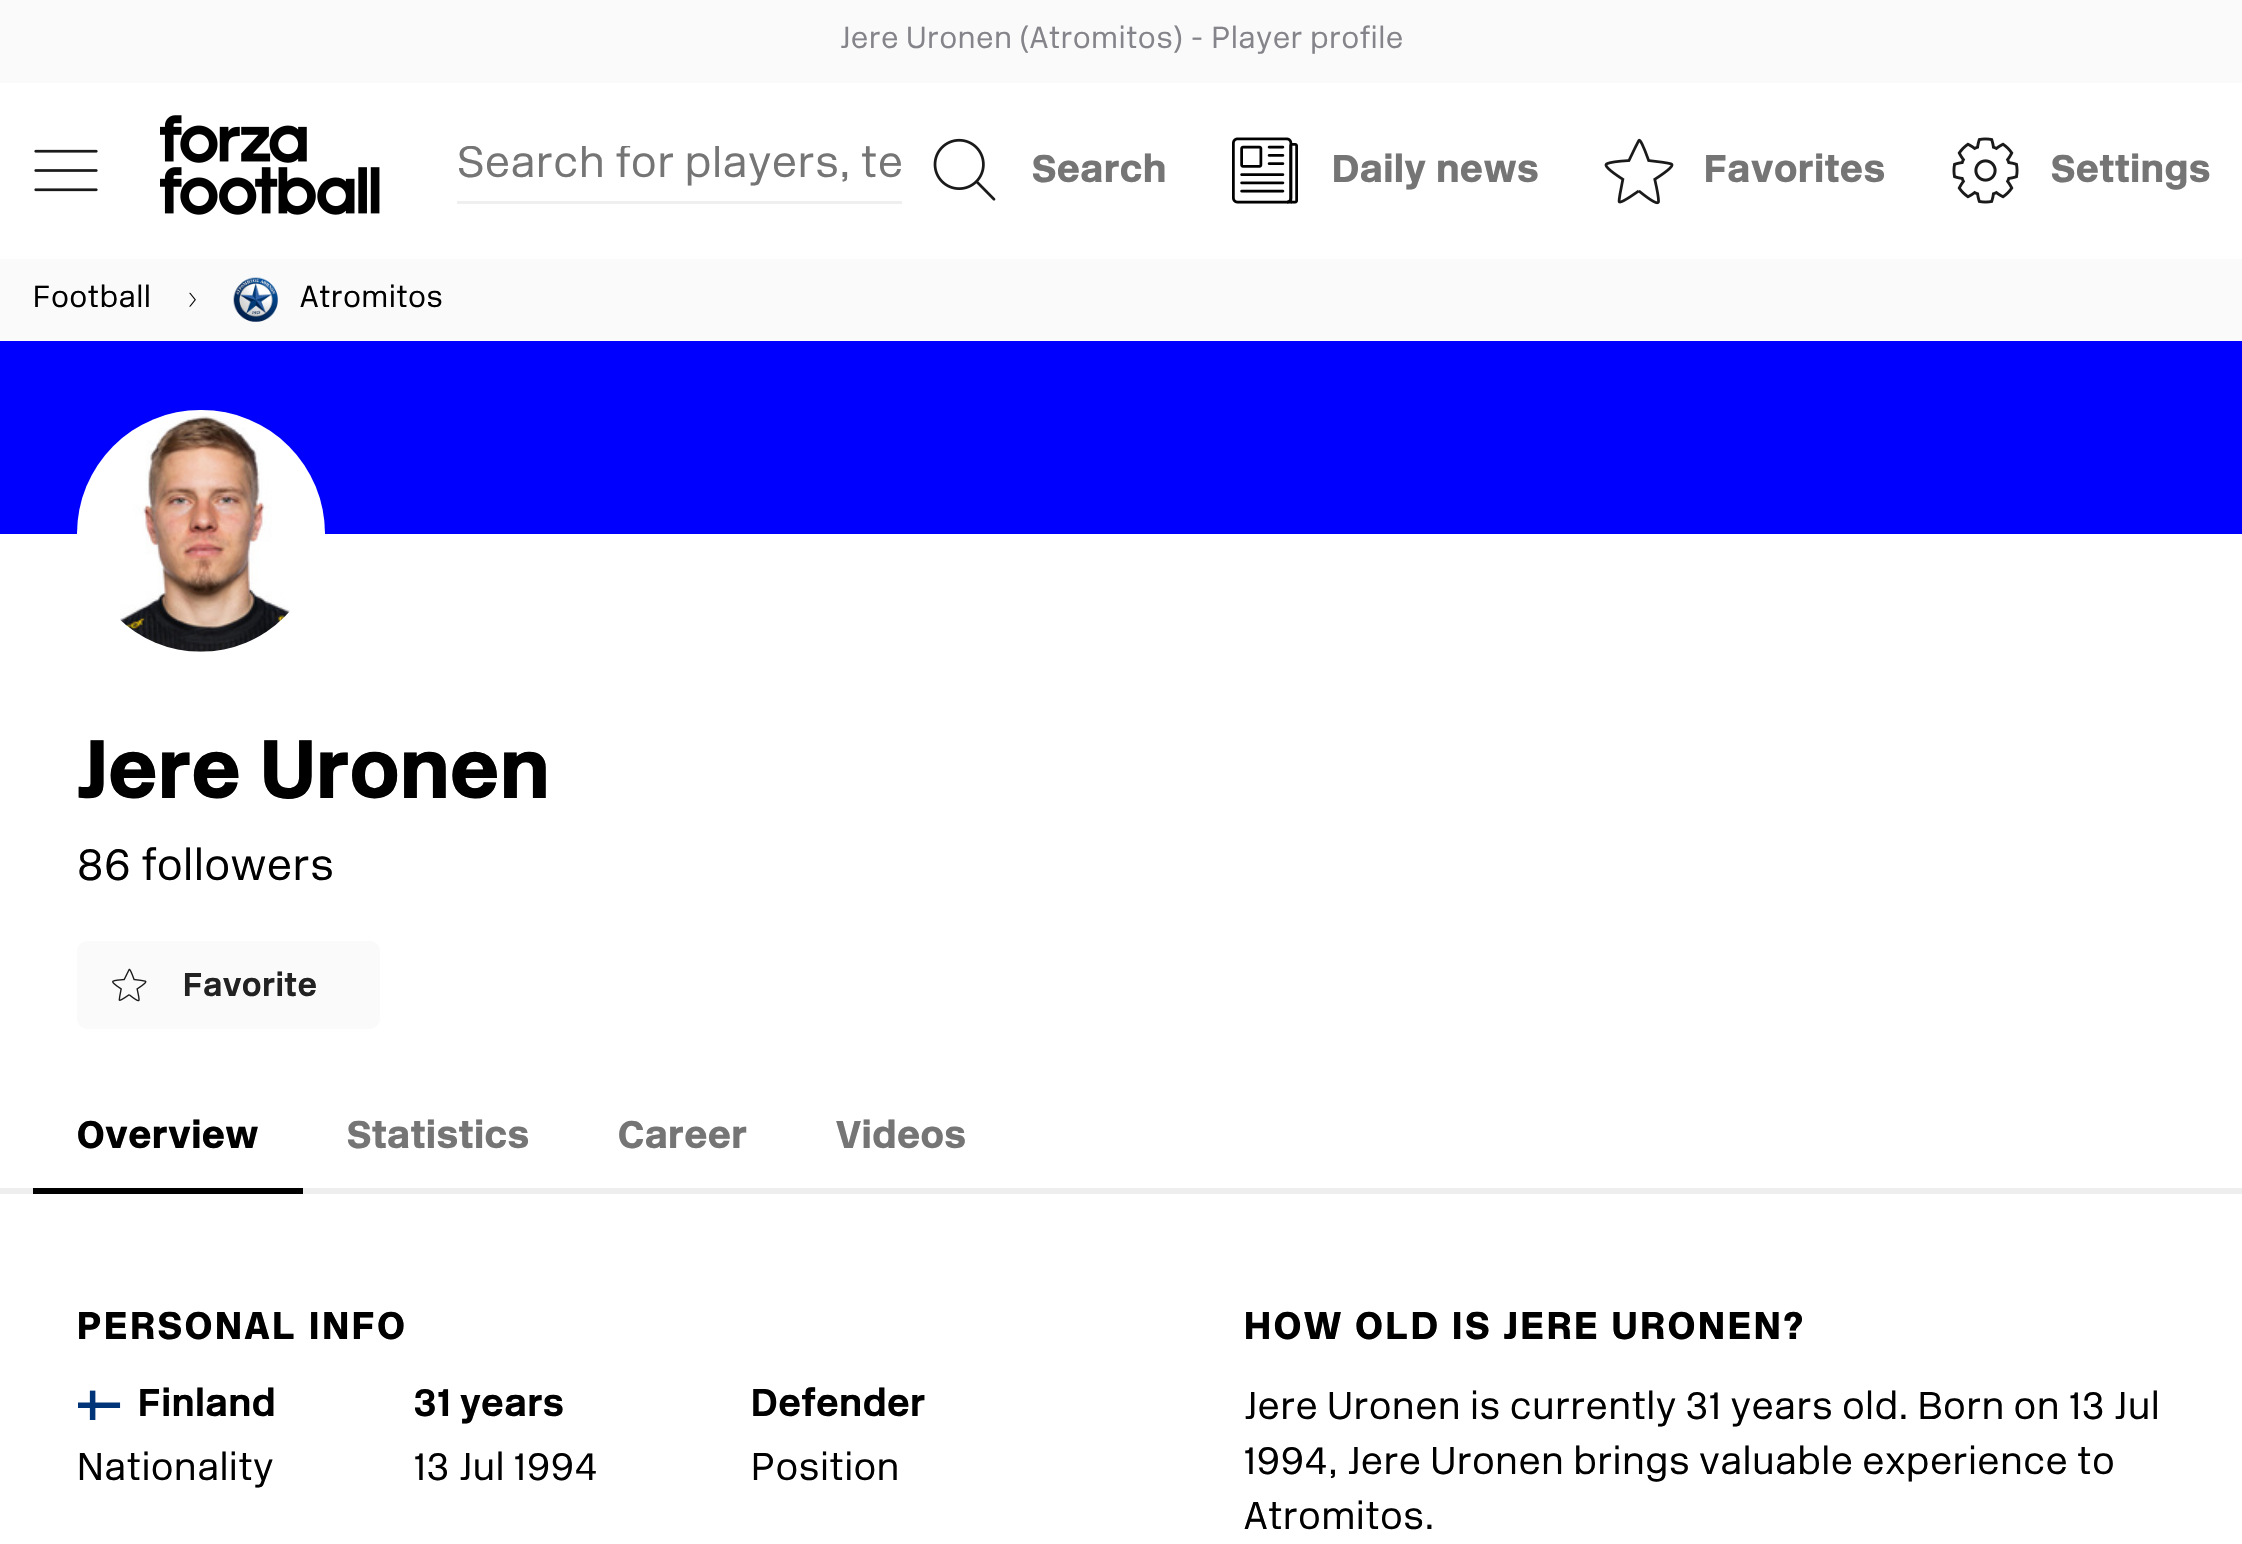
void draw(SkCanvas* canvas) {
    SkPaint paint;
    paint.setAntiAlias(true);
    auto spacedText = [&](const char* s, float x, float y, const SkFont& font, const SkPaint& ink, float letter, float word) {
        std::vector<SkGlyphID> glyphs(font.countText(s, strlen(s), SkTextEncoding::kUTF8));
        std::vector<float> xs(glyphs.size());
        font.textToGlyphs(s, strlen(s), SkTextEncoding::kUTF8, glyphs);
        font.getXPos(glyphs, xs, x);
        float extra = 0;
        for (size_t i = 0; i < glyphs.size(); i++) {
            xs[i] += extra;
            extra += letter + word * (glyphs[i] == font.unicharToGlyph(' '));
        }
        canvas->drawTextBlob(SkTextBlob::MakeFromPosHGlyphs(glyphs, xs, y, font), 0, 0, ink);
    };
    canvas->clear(0xFFFFFFFF);
    paint.setColor(0xFFFAFAFA);
    canvas->drawRect(SkRect::MakeXYWH(0, 0, 2242, 83), paint);
    SkFont font1(fontMgr->matchFamilyStyle("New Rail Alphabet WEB", SkFontStyle(300, SkFontStyle::kNormal_Width, SkFontStyle::kUpright_Slant)), 30.25f);
    font1.setSubpixel(true);
    paint.setColor(0xFF84848A);
    spacedText("Jere Uronen (Atromitos) - Player profile", 840, 48, font1, paint, 0.82f, 0);
    canvas->drawImageRect(SkImages::DeferredFromEncodedData(SkData::MakeFromFileName("img1.png")), SkRect::MakeXYWH(34, 149, 64, 43), SkSamplingOptions());
    canvas->drawImageRect(SkImages::DeferredFromEncodedData(SkData::MakeFromFileName("img2.png")), SkRect::MakeXYWH(160, 115, 220, 100), SkSamplingOptions());
    paint.setColor(0xFFEFEFEF);
    canvas->drawRect(SkRect::MakeXYWH(457, 201, 445, 3), paint);
    canvas->save();
    canvas->clipRect(SkRect::MakeXYWH(457, 146, 445, 44));
    SkFont font2(fontMgr->matchFamilyStyle("New Rail Alphabet WEB", SkFontStyle(300, SkFontStyle::kNormal_Width, SkFontStyle::kUpright_Slant)), 44);
    font2.setSubpixel(true);
    paint.setColor(0xFF757575);
    spacedText("Search for players, te", 457, 177, font2, paint, 0.82f, 0);
    canvas->restore();
    canvas->drawImageRect(SkImages::DeferredFromEncodedData(SkData::MakeFromFileName("img3.png")), SkRect::MakeXYWH(933, 138, 63, 63), SkSamplingOptions());
    SkFont font3(fontMgr->matchFamilyStyle("New Rail Alphabet WEB", SkFontStyle(900, SkFontStyle::kNormal_Width, SkFontStyle::kUpright_Slant)), 38.5f);
    font3.setSubpixel(true);
    spacedText("Search", 1032, 182, font3, paint, 0.82f, 0);
    canvas->drawImageRect(SkImages::DeferredFromEncodedData(SkData::MakeFromFileName("img4.png")), SkRect::MakeXYWH(1232, 137, 66, 67), SkSamplingOptions());
    spacedText("Daily news", 1332, 182, font3, paint, 0.82f, 0);
    canvas->drawImageRect(SkImages::DeferredFromEncodedData(SkData::MakeFromFileName("img5.png")), SkRect::MakeXYWH(1604, 138, 70, 67), SkSamplingOptions());
    spacedText("Favorites", 1704, 182, font3, paint, 0.82f, 0);
    canvas->drawImageRect(SkImages::DeferredFromEncodedData(SkData::MakeFromFileName("img6.png")), SkRect::MakeXYWH(1952, 137, 67, 67), SkSamplingOptions());
    spacedText("Settings", 2051, 182, font3, paint, 0.82f, 0);
    paint.setColor(0xFFFAFAFA);
    canvas->drawRect(SkRect::MakeXYWH(0, 259, 2242, 82), paint);
    paint.setColor(0xFF000000);
    spacedText("Football", 33, 307, font1, paint, 0.82f, 0);
    canvas->drawImageRect(SkImages::DeferredFromEncodedData(SkData::MakeFromFileName("img7.png")), SkRect::MakeXYWH(189, 292, 7, 15), SkSamplingOptions());
    canvas->drawImageRect(SkImages::DeferredFromEncodedData(SkData::MakeFromFileName("img8.png")), SkRect::MakeXYWH(233, 277, 45, 45), SkSamplingOptions());
    spacedText("Atromitos", 300, 307, font1, paint, 0.82f, 0);
    paint.setColor(0xFF0000FF);
    canvas->drawRect(SkRect::MakeXYWH(0, 341, 2242, 193), paint);
    paint.setColor(0xFFFFFFFF);
    canvas->drawRoundRect(SkRect::MakeXYWH(77, 410, 248, 247), 123.5f, 123.5f, paint);
    canvas->drawImageRect(SkImages::DeferredFromEncodedData(SkData::MakeFromFileName("img9.png")), SkRect::MakeXYWH(120, 416, 170, 236), SkSamplingOptions());
    SkFont font4(fontMgr->matchFamilyStyle("New Rail Alphabet WEB", SkFontStyle(900, SkFontStyle::kNormal_Width, SkFontStyle::kUpright_Slant)), 82.5f);
    font4.setSubpixel(true);
    paint.setColor(0xFF000000);
    spacedText("Jere Uronen", 77, 798, font4, paint, 0.82f, 0);
    spacedText("86 followers", 77, 880, font2, paint, 0.82f, 0);
    paint.setColor(0xFFFAFAFA);
    canvas->drawRoundRect(SkRect::MakeXYWH(77, 941, 303, 88), 11, 11, paint);
    canvas->drawImageRect(SkImages::DeferredFromEncodedData(SkData::MakeFromFileName("img10.png")), SkRect::MakeXYWH(112, 968, 35, 34), SkSamplingOptions());
    SkFont font5(fontMgr->matchFamilyStyle("New Rail Alphabet WEB", SkFontStyle::Bold()), 33);
    font5.setSubpixel(true);
    paint.setColor(0xFF222222);
    spacedText("Favorite", 183, 996, font5, paint, 0.82f, 0);
    paint.setColor(0xFF000000);
    spacedText("Overview", 77, 1148, font3, paint, 0.82f, 0);
    paint.setColor(0xFFEEEEEE);
    canvas->drawRect(SkRect::MakeXYWH(0, 1188, 2242, 6), paint);
    paint.setColor(0xFF000000);
    canvas->drawRect(SkRect::MakeXYWH(33, 1188, 270, 6), paint);
    paint.setColor(0xFF757575);
    spacedText("Statistics", 347, 1148, font3, paint, 0.82f, 0);
    spacedText("Career", 618, 1148, font3, paint, 0.82f, 0);
    spacedText("Videos", 836, 1148, font3, paint, 0.82f, 0);
    paint.setColor(0xFF000000);
    spacedText("PERSONAL INFO", 77, 1339, font3, paint, 2.75f, 0);
    canvas->drawImageRect(SkImages::DeferredFromEncodedData(SkData::MakeFromFileName("img11.png")), SkRect::MakeXYWH(78, 1390, 43, 30), SkSamplingOptions());
    SkFont font6(fontMgr->matchFamilyStyle("New Rail Alphabet WEB", SkFontStyle::Bold()), 38.5f);
    font6.setSubpixel(true);
    spacedText("Finland", 138, 1416, font6, paint, 0.82f, 0);
    SkFont font7(fontMgr->matchFamilyStyle("New Rail Alphabet WEB", SkFontStyle(300, SkFontStyle::kNormal_Width, SkFontStyle::kUpright_Slant)), 38.5f);
    font7.setSubpixel(true);
    spacedText("Nationality", 77, 1480, font7, paint, 0.82f, 0);
    spacedText("31 years", 414, 1416, font6, paint, 0.82f, 0);
    spacedText("13 Jul 1994", 414, 1480, font7, paint, 0.82f, 0);
    spacedText("Defender", 751, 1416, font6, paint, 0.82f, 0);
    spacedText("Position", 751, 1480, font7, paint, 0.82f, 0);
    spacedText("HOW OLD IS JERE URONEN?", 1244, 1339, font3, paint, 2.75f, 0);
    spacedText("Jere Uronen is currently 31 years old. Born on 13 Jul", 1244, 1419, font7, paint, 0.82f, 0);
    spacedText("1994, Jere Uronen brings valuable experience to", 1244, 1474, font7, paint, 0.82f, 0);
    spacedText("Atromitos.", 1244, 1529, font7, paint, 0.82f, 0);
}
